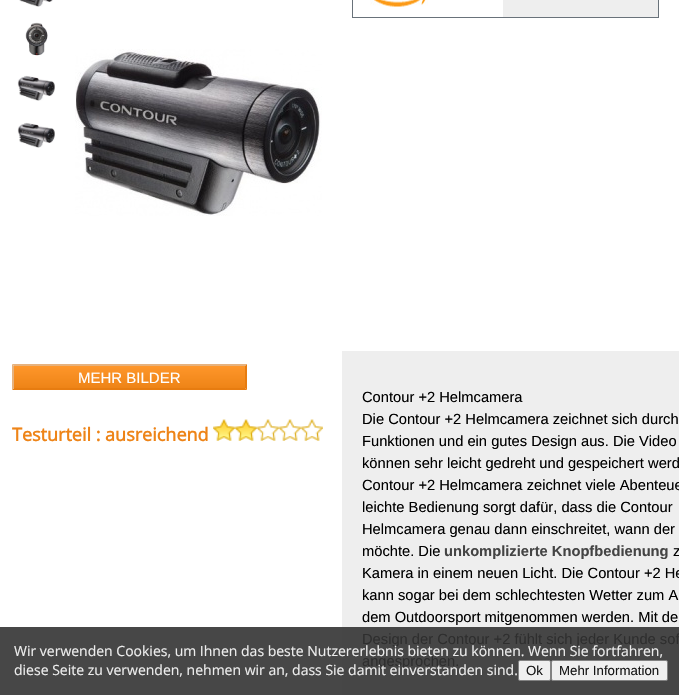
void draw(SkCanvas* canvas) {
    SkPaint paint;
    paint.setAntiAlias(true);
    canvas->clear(0xFFFFFFFF);
    paint.setColor(0xFF474747);
    canvas->drawRect(SkRect::MakeXYWH(0, 627, 342, 68), paint);
    paint.setColor(0xFFEEEEEE);
    canvas->drawRect(SkRect::MakeXYWH(503, 0, 155, 17), paint);
    paint.setColor(0xFF69727A);
    canvas->drawRect(SkRect::MakeXYWH(658, 0, 1, 18), paint);
    canvas->drawRect(SkRect::MakeXYWH(352, 17, 307, 1), paint);
    canvas->drawRect(SkRect::MakeXYWH(352, 0, 1, 18), paint);
    canvas->drawImageRect(SkImages::DeferredFromEncodedData(SkData::MakeFromFileName("img1.png")), SkRect::MakeXYWH(370, 0, 58, 7), SkSamplingOptions());
    canvas->drawImageRect(SkImages::DeferredFromEncodedData(SkData::MakeFromFileName("img2.png")), SkRect::MakeXYWH(19, 0, 34, 7), SkSamplingOptions());
    canvas->drawImageRect(SkImages::DeferredFromEncodedData(SkData::MakeFromFileName("img3.png")), SkRect::MakeXYWH(25, 22, 23, 34), SkSamplingOptions());
    canvas->drawImageRect(SkImages::DeferredFromEncodedData(SkData::MakeFromFileName("img4.png")), SkRect::MakeXYWH(17, 75, 38, 26), SkSamplingOptions());
    canvas->drawImageRect(SkImages::DeferredFromEncodedData(SkData::MakeFromFileName("img5.png")), SkRect::MakeXYWH(17, 122, 38, 26), SkSamplingOptions());
    canvas->drawImageRect(SkImages::DeferredFromEncodedData(SkData::MakeFromFileName("img6.png")), SkRect::MakeXYWH(75, 49, 247, 167), SkSamplingOptions());
    {
        const SkColor colors[] = {0xFFFE962A, 0xFFEE8417};
        const float stops[] = {0, 1};
        const SkPoint ends[] = {{130, 366}, {130, 388}};
        paint.setShader(SkGradientShader::MakeLinear(ends, colors, stops, 2, SkTileMode::kClamp));
        paint.setAlpha(255);
    }
    canvas->drawRect(SkRect::MakeXYWH(14, 366, 231, 22), paint);
    paint.setShader(nullptr);
    paint.setColor(0xFFE6B27E);
    canvas->drawPath(SkPathBuilder().moveTo(12, 364).lineTo(247, 364).lineTo(245, 366).lineTo(14, 366).close().detach(), paint);
    paint.setColor(0xFFE77C10);
    canvas->drawPath(SkPathBuilder().moveTo(247, 364).lineTo(247, 390).lineTo(245, 388).lineTo(245, 366).close().detach(), paint);
    canvas->drawPath(SkPathBuilder().moveTo(247, 390).lineTo(12, 390).lineTo(14, 388).lineTo(245, 388).close().detach(), paint);
    paint.setColor(0xFFE6B27E);
    canvas->drawPath(SkPathBuilder().moveTo(12, 390).lineTo(12, 364).lineTo(14, 366).lineTo(14, 388).close().detach(), paint);
    SkFont font1(fontMgr->matchFamilyStyle("Liberation Sans", SkFontStyle::Normal()), 15);
    font1.setSubpixel(true);
    paint.setColor(0xFFFFFFFF);
    canvas->drawString("MEHR BILDER", 78, 383, font1, paint);
    SkFont font2(fontMgr->matchFamilyStyle("Open Sans", SkFontStyle::Bold()), 18);
    font2.setSubpixel(true);
    paint.setColor(0xFFEE8417);
    canvas->drawString("Testurteil : ausreichend", 12, 441, font2, paint);
    canvas->drawImageRect(SkImages::DeferredFromEncodedData(SkData::MakeFromFileName("img7.png")), SkRect::MakeXYWH(213, 419, 22, 22), SkSamplingOptions());
    canvas->drawImageRect(SkImages::DeferredFromEncodedData(SkData::MakeFromFileName("img7.png")), SkRect::MakeXYWH(235, 419, 22, 22), SkSamplingOptions());
    canvas->drawImageRect(SkImages::DeferredFromEncodedData(SkData::MakeFromFileName("img8.png")), SkRect::MakeXYWH(257, 419, 22, 22), SkSamplingOptions());
    canvas->drawImageRect(SkImages::DeferredFromEncodedData(SkData::MakeFromFileName("img8.png")), SkRect::MakeXYWH(279, 419, 22, 22), SkSamplingOptions());
    canvas->drawImageRect(SkImages::DeferredFromEncodedData(SkData::MakeFromFileName("img9.png")), SkRect::MakeXYWH(301, 419, 22, 22), SkSamplingOptions());
    paint.setColor(0xFFEEEEEE);
    canvas->drawRect(SkRect::MakeXYWH(342, 351, 337, 276), paint);
    paint.setColor(0xFF464646);
    canvas->drawRect(SkRect::MakeXYWH(342, 627, 337, 68), paint);
    SkFont font3(fontMgr->matchFamilyStyle("Liberation Sans", SkFontStyle::Normal()), 14.7f);
    font3.setSubpixel(true);
    paint.setColor(0xFF000000);
    canvas->drawString("Contour +2 Helmcamera", 362, 402, font3, paint);
    canvas->drawString("Die Contour +2 Helmcamera zeichnet sich durch", 362, 424, font3, paint);
    canvas->drawString("Funktionen und ein gutes Design aus. Die Video", 362, 446, font3, paint);
    canvas->drawString("können sehr leicht gedreht und gespeichert werd", 362, 468, font3, paint);
    canvas->drawString("Contour +2 Helmcamera zeichnet viele Abenteue", 362, 490, font3, paint);
    canvas->drawString("leichte Bedienung sorgt dafür, dass die Contour", 362, 512, font3, paint);
    canvas->drawString("Helmcamera genau dann einschreitet, wann der", 362, 534, font3, paint);
    canvas->drawString("möchte. Die", 362, 556, font3, paint);
    SkFont font4(fontMgr->matchFamilyStyle("Liberation Sans", SkFontStyle::Bold()), 14.7f);
    font4.setSubpixel(true);
    paint.setColor(0xFF444444);
    canvas->drawString("unkomplizierte Knopfbedienung", 444, 556, font4, paint);
    paint.setColor(0xFF000000);
    canvas->drawString("z", 673, 556, font3, paint);
    canvas->drawString("Kamera in einem neuen Licht. Die Contour +2 He", 362, 578, font3, paint);
    canvas->drawString("kann sogar bei dem schlechtesten Wetter zum A", 362, 600, font3, paint);
    canvas->drawString("dem Outdoorsport mitgenommen werden. Mit de", 362, 622, font3, paint);
    paint.setColor(0xFF2E2E2E);
    canvas->drawString("Design der Contour +2 fühlt sich jeder Kunde sof", 362, 644, font3, paint);
    canvas->drawString("angesprochen.", 362, 666, font3, paint);
    SkFont font5(fontMgr->matchFamilyStyle("Open Sans", SkFontStyle::Normal()), 14);
    font5.setSubpixel(true);
    paint.setColor(0xFFEDEDED);
    canvas->drawString("Wir verwenden Cookies, um Ihnen das beste Nutzererlebnis bieten zu können. Wenn Sie fortfahren,", 14, 656, font5, paint);
    canvas->drawString("diese Seite zu verwenden, nehmen wir an, dass Sie damit einverstanden sind.", 14, 675, font5, paint);
    paint.setColor(0xFFEFEFEF);
    canvas->drawRoundRect(SkRect::MakeXYWH(518.5f, 660.5f, 32, 20), 1.5f, 1.5f, paint);
    paint.setStyle(SkPaint::kStroke_Style);
    paint.setStrokeWidth(1);
    paint.setColor(0xFF828282);
    canvas->drawRoundRect(SkRect::MakeXYWH(518.5f, 660.5f, 32, 20), 1.5f, 1.5f, paint);
    SkFont font6(fontMgr->matchFamilyStyle("Liberation Sans", SkFontStyle::Normal()), 13.25f);
    font6.setSubpixel(true);
    paint.setStyle(SkPaint::kFill_Style);
    paint.setColor(0xFF181818);
    canvas->drawString("Ok", 526, 675, font6, paint);
    paint.setColor(0xFFEFEFEF);
    canvas->drawRoundRect(SkRect::MakeXYWH(551.5f, 660.5f, 116, 20), 1.5f, 1.5f, paint);
    paint.setStyle(SkPaint::kStroke_Style);
    paint.setColor(0xFF828282);
    canvas->drawRoundRect(SkRect::MakeXYWH(551.5f, 660.5f, 116, 20), 1.5f, 1.5f, paint);
    paint.setStyle(SkPaint::kFill_Style);
    paint.setColor(0xFF181818);
    canvas->drawString("Mehr Information", 559, 675, font6, paint);
}
